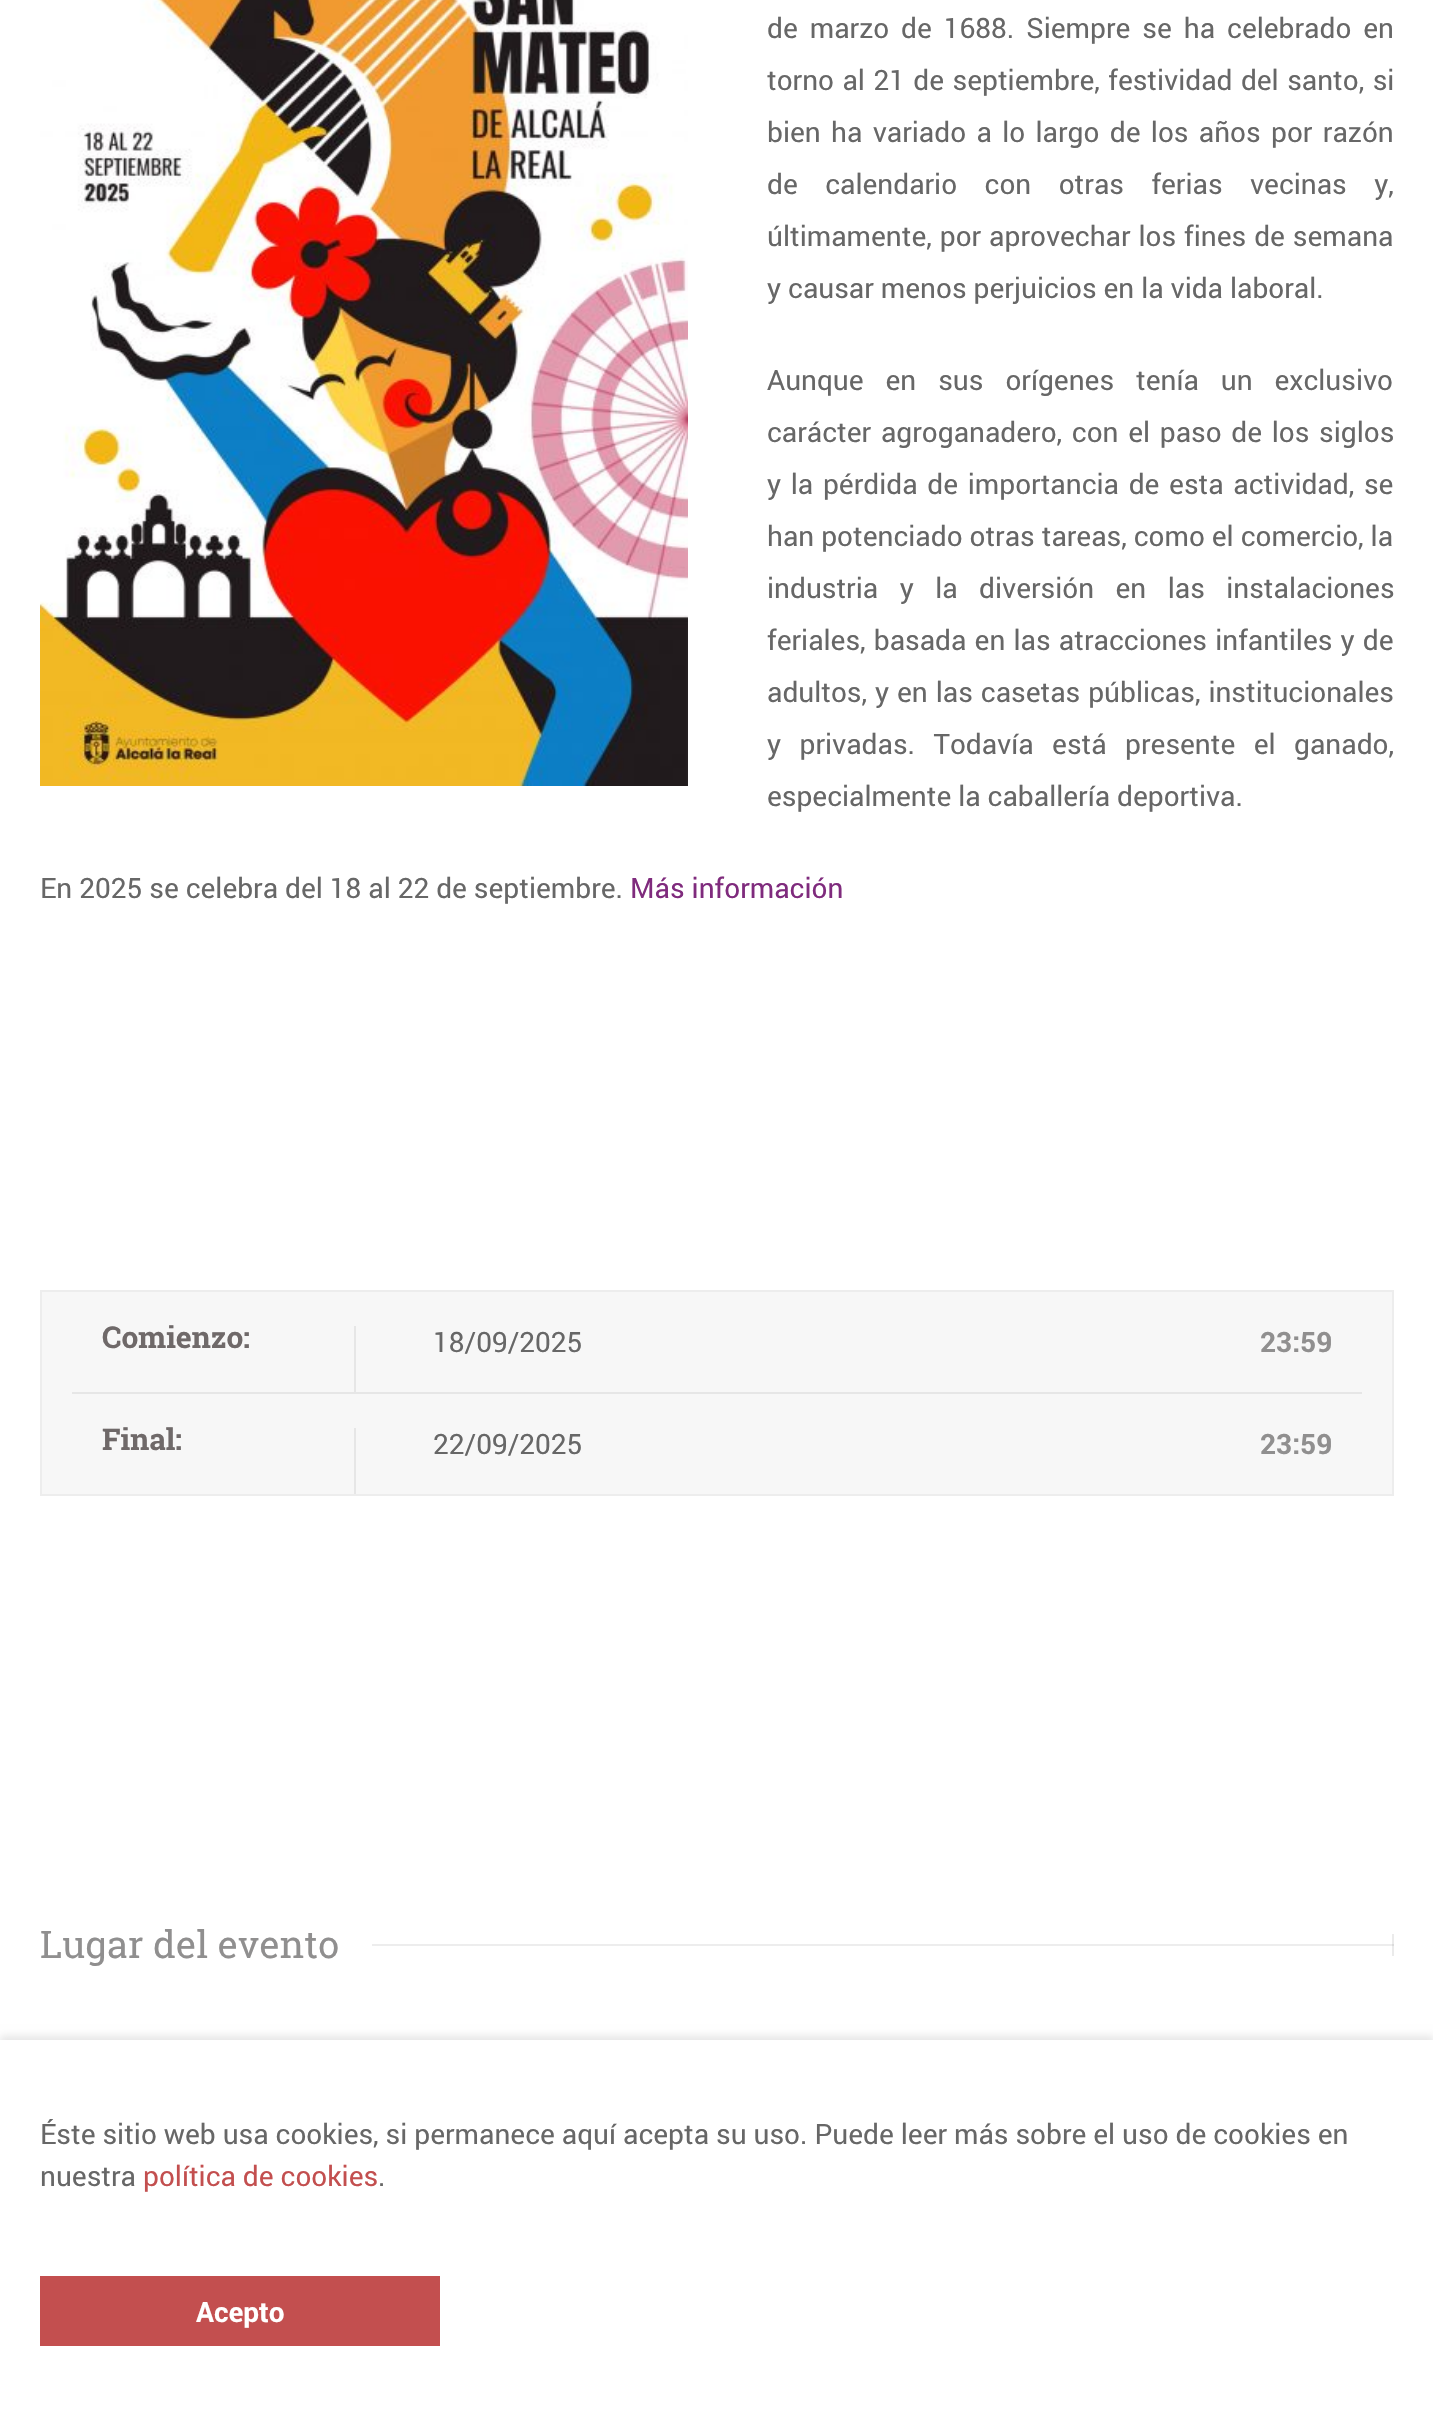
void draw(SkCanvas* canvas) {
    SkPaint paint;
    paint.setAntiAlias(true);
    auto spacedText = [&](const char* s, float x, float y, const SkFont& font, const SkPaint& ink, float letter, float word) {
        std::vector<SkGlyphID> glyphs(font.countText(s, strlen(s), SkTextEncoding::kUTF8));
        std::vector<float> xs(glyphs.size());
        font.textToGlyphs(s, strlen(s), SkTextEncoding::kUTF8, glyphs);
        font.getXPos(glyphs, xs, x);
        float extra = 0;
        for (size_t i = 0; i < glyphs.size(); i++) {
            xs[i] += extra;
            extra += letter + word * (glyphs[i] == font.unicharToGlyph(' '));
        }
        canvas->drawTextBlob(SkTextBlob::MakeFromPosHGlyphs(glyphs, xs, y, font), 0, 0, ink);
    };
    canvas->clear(0xFFFFFFFF);
    paint.setColor(0xFFEDEDED);
    canvas->drawRect(SkRect::MakeXYWH(372, 1944, 1022, 2), paint);
    canvas->drawImageRect(SkImages::DeferredFromEncodedData(SkData::MakeFromFileName("img1.png")), SkRect::MakeXYWH(40, 0, 648, 786), SkSamplingOptions());
    SkFont font1(fontMgr->matchFamilyStyle("Roboto", SkFontStyle::Normal()), 28);
    font1.setSubpixel(true);
    paint.setColor(0xFF676767);
    spacedText("de marzo de 1688. Siempre se ha celebrado en", 767, 38, font1, paint, 0, 5);
    spacedText("torno al 21 de septiembre, festividad del santo, si", 767, 90, font1, paint, 0, 1.5f);
    spacedText("bien ha variado a lo largo de los años por razón", 767, 142, font1, paint, 0, 3.4f);
    spacedText("de calendario con otras ferias vecinas y,", 767, 194, font1, paint, 0, 20.5f);
    spacedText("últimamente, por aprovechar los fines de semana", 767, 246, font1, paint, 0, 1);
    canvas->drawString("y causar menos perjuicios en la vida laboral.", 767, 298, font1, paint);
    spacedText("Aunque en sus orígenes tenía un exclusivo", 767, 390, font1, paint, 0, 15);
    spacedText("carácter agroganadero, con el paso de los siglos", 767, 442, font1, paint, 0, 2.75f);
    spacedText("y la pérdida de importancia de esta actividad, se", 767, 494, font1, paint, 0, 2.75f);
    canvas->drawString("han potenciado otras tareas, como el comercio, la", 767, 546, font1, paint);
    spacedText("industria y la diversión en las instalaciones", 767, 598, font1, paint, 0, 14.5f);
    spacedText("feriales, basada en las atracciones infantiles y de", 767, 650, font1, paint, 0, 1.25f);
    spacedText("adultos, y en las casetas públicas, institucionales", 767, 702, font1, paint, 0, 1);
    spacedText("y privadas. Todavía está presente el ganado,", 767, 754, font1, paint, 0, 11.5f);
    canvas->drawString("especialmente la caballería deportiva.", 767, 806, font1, paint);
    canvas->drawString("En 2025 se celebra del 18 al 22 de septiembre.", 40, 898, font1, paint);
    paint.setColor(0xFF7F2B7D);
    canvas->drawString("Más información", 630, 898, font1, paint);
    paint.setColor(0xFFF7F7F7);
    canvas->drawRect(SkRect::MakeXYWH(41, 1291, 1352, 204), paint);
    paint.setStyle(SkPaint::kStroke_Style);
    paint.setStrokeWidth(2);
    paint.setColor(0xFFEDEDED);
    canvas->drawRect(SkRect::MakeXYWH(41, 1291, 1352, 204), paint);
    paint.setStyle(SkPaint::kFill_Style);
    paint.setColor(0xFFE6E6E6);
    canvas->drawRect(SkRect::MakeXYWH(72, 1392, 1290, 2), paint);
    SkFont font2(fontMgr->matchFamilyStyle("Roboto Slab", SkFontStyle::Bold()), 30);
    font2.setSubpixel(true);
    paint.setColor(0xFF6F6969);
    canvas->drawString("Comienzo:", 102, 1348, font2, paint);
    paint.setColor(0xFFE6E6E6);
    canvas->drawRect(SkRect::MakeXYWH(354, 1326, 2, 66), paint);
    paint.setColor(0xFF676767);
    canvas->drawString("18/09/2025", 433, 1352, font1, paint);
    SkFont font3(fontMgr->matchFamilyStyle("Roboto", SkFontStyle::Bold()), 28);
    font3.setSubpixel(true);
    paint.setColor(0xFF908F8F);
    canvas->drawString("23:59", 1260, 1352, font3, paint);
    paint.setColor(0xFF6F6969);
    canvas->drawString("Final:", 102, 1450, font2, paint);
    paint.setColor(0xFFE6E6E6);
    canvas->drawRect(SkRect::MakeXYWH(354, 1428, 2, 66), paint);
    paint.setColor(0xFF676767);
    canvas->drawString("22/09/2025", 433, 1454, font1, paint);
    paint.setColor(0xFF908F8F);
    canvas->drawString("23:59", 1260, 1454, font3, paint);
    SkFont font4(fontMgr->matchFamilyStyle("Roboto Slab", SkFontStyle::Normal()), 38);
    font4.setSubpixel(true);
    canvas->drawString("Lugar del evento", 40, 1958, font4, paint);
    paint.setColor(0xFFEBEBEB);
    canvas->drawRect(SkRect::MakeXYWH(1392, 1934, 2, 22), paint);
    paint.setColor(0xFFDBDBDB);
    canvas->drawRect(SkRect::MakeXYWH(1392, 1944, 2, 2), paint);
    paint.setColor(0x1A000000);
    paint.setMaskFilter(SkMaskFilter::MakeBlur(kNormal_SkBlurStyle, 4));
    canvas->drawRect(SkRect::MakeXYWH(0, 2036, 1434, 386), paint);
    paint.setMaskFilter(nullptr);
    paint.setColor(0xFFFFFFFF);
    canvas->drawRect(SkRect::MakeXYWH(0, 2040, 1433, 386), paint);
    paint.setColor(0xFF676767);
    canvas->drawString("Éste sitio web usa cookies, si permanece aquí acepta su uso. Puede leer más sobre el uso de cookies en", 40, 2144, font1, paint);
    canvas->drawString("nuestra", 40, 2186, font1, paint);
    paint.setColor(0xFFC34F4F);
    canvas->drawString("política de cookies", 143, 2186, font1, paint);
    paint.setColor(0xFF676767);
    canvas->drawString(".", 378, 2186, font1, paint);
    paint.setColor(0xFFC34F4F);
    canvas->drawRect(SkRect::MakeXYWH(40, 2276, 400, 70), paint);
    paint.setColor(0xFFFFFFFF);
    canvas->drawString("Acepto", 196, 2322, font3, paint);
}
